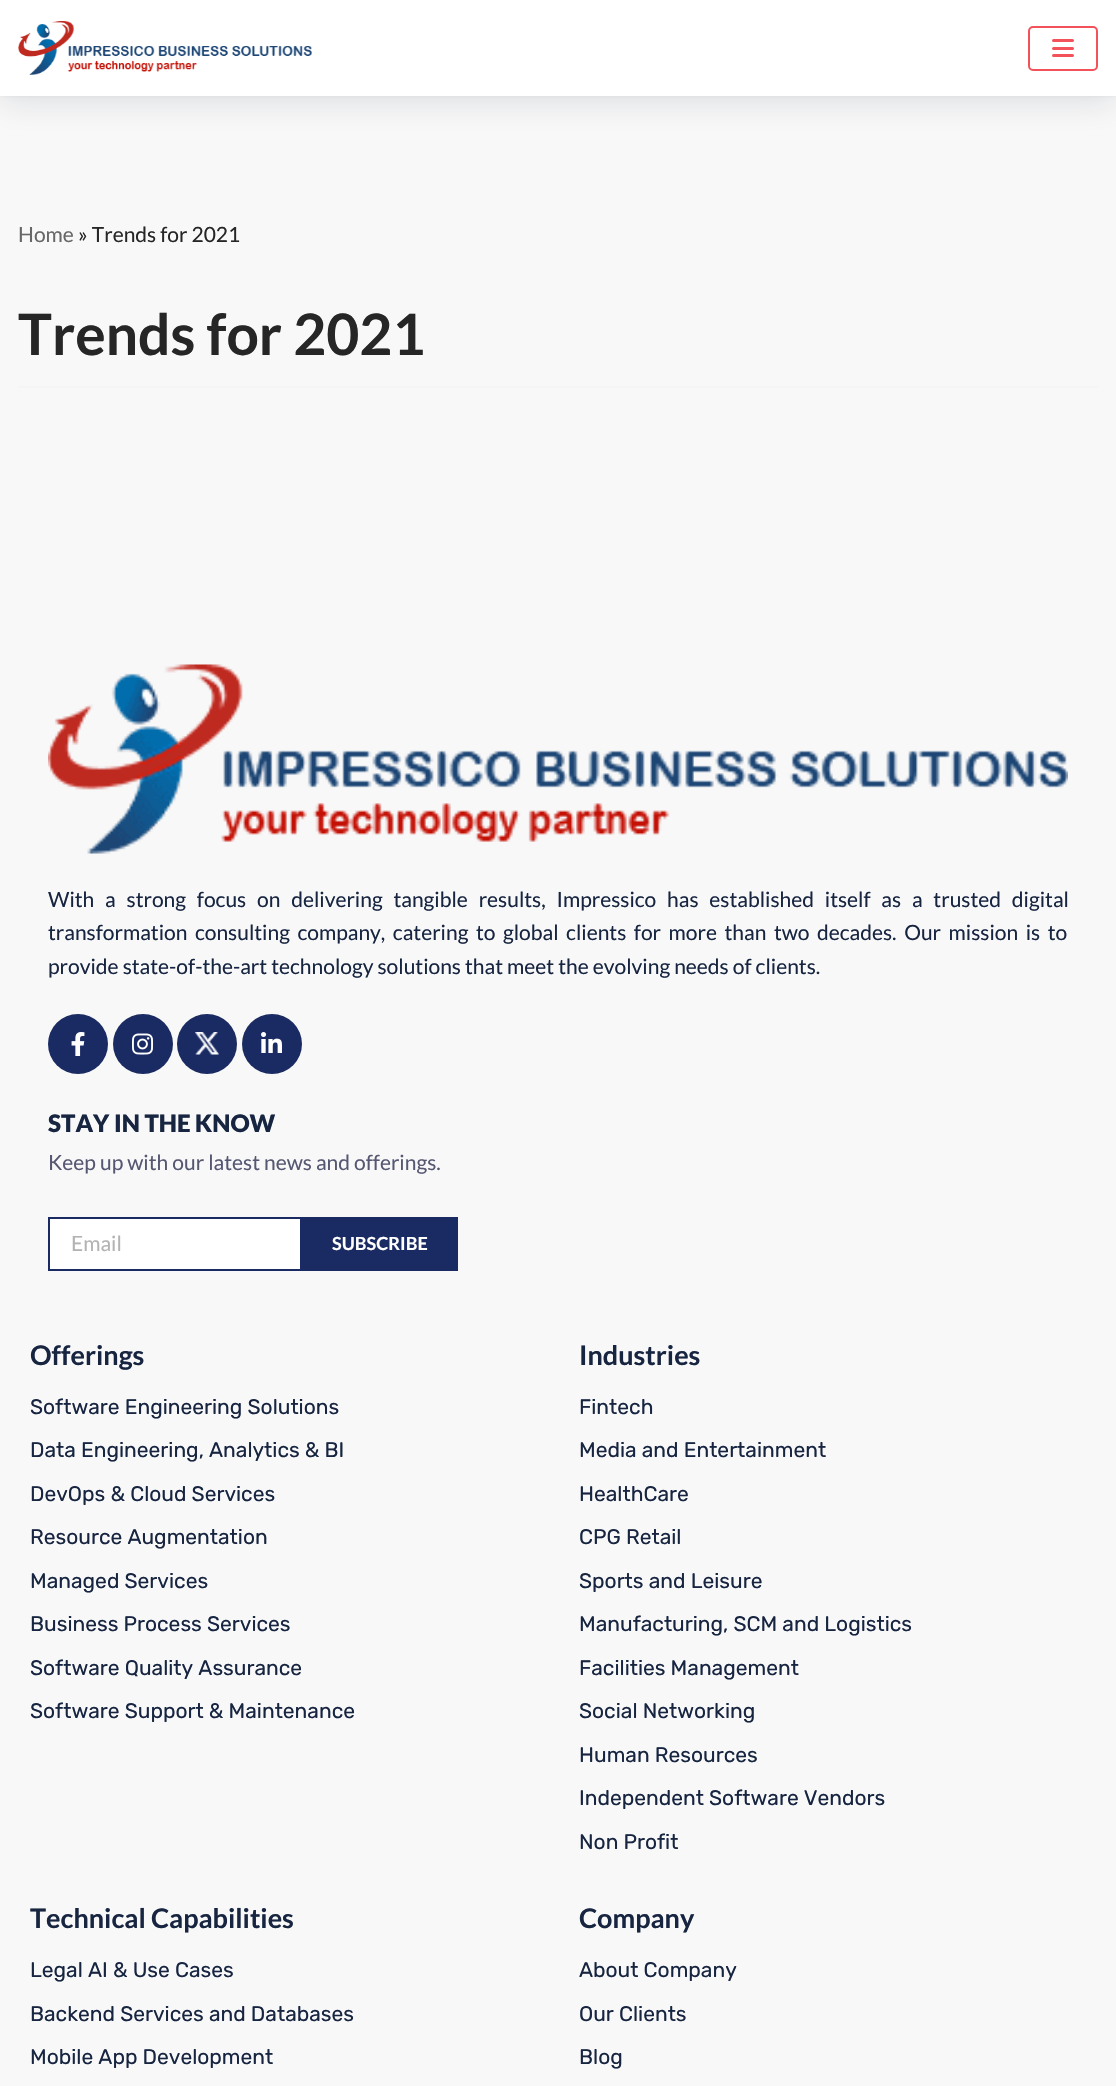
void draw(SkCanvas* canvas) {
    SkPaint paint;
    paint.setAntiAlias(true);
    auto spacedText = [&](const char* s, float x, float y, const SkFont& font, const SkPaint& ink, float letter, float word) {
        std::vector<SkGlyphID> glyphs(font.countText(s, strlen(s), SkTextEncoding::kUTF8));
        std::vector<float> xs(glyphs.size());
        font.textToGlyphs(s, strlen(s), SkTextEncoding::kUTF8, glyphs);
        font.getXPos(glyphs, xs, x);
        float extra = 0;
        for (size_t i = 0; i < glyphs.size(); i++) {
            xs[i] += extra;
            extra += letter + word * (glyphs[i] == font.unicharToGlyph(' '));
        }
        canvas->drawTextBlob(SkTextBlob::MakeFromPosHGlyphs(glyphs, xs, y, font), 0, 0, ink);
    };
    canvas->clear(0xFFF8F8F8);
    paint.setColor(0x1A07193C);
    paint.setMaskFilter(SkMaskFilter::MakeBlur(kNormal_SkBlurStyle, 15));
    canvas->drawRect(SkRect::MakeXYWH(0, 8, 1116, 96), paint);
    paint.setMaskFilter(nullptr);
    paint.setColor(0x1A000000);
    paint.setMaskFilter(SkMaskFilter::MakeBlur(kNormal_SkBlurStyle, 2));
    canvas->drawRect(SkRect::MakeXYWH(0, -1, 1116, 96), paint);
    paint.setMaskFilter(nullptr);
    paint.setColor(0xFFFFFFFF);
    canvas->drawRect(SkRect::MakeXYWH(0, 0, 1116, 96), paint);
    canvas->drawImageRect(SkImages::DeferredFromEncodedData(SkData::MakeFromFileName("img1.png")), SkRect::MakeXYWH(18, 21, 294, 54), SkSamplingOptions());
    paint.setStyle(SkPaint::kStroke_Style);
    paint.setStrokeWidth(2);
    paint.setColor(0xFFF3525A);
    canvas->drawRoundRect(SkRect::MakeXYWH(1029, 27, 68, 43), 4, 4, paint);
    paint.setStyle(SkPaint::kFill_Style);
    canvas->drawRoundRect(SkRect::MakeXYWH(1052, 39, 22, 3), 1.5f, 1.5f, paint);
    canvas->drawRoundRect(SkRect::MakeXYWH(1052, 47, 22, 3), 1.5f, 1.5f, paint);
    canvas->drawRoundRect(SkRect::MakeXYWH(1052, 54, 22, 3), 1.5f, 1.5f, paint);
    paint.setColor(0xFFF4F5F7);
    canvas->drawRect(SkRect::MakeXYWH(18, 386, 1080, 2), paint);
    SkFont font1(fontMgr->matchFamilyStyle("Lato", SkFontStyle::Normal()), 21);
    font1.setSubpixel(true);
    paint.setColor(0xFF676767);
    canvas->drawString("Home", 18, 242, font1, paint);
    paint.setColor(0xFF272626);
    canvas->drawString("» Trends for 2021", 78, 242, font1, paint);
    SkFont font2(fontMgr->matchFamilyStyle("Lato", SkFontStyle::Bold()), 57);
    font2.setSubpixel(true);
    canvas->drawString("Trends for 2021", 18, 355, font2, paint);
    canvas->drawImageRect(SkImages::DeferredFromEncodedData(SkData::MakeFromFileName("img2.png")), SkRect::MakeXYWH(48, 664, 1020, 190), SkSamplingOptions());
    paint.setColor(0xFF172541);
    spacedText("With a strong focus on delivering tangible results, Impressico has established itself as a trusted digital", 48, 907, font1, paint, 0, 6.75f);
    spacedText("transformation consulting company, catering to global clients for more than two decades. Our mission is to", 48, 940, font1, paint, 0, 3.5f);
    canvas->drawString("provide state-of-the-art technology solutions that meet the evolving needs of clients.", 48, 974, font1, paint);
    paint.setColor(0xFF1A2B63);
    canvas->drawCircle(78, 1044, 30, paint);
    canvas->drawImageRect(SkImages::DeferredFromEncodedData(SkData::MakeFromFileName("img3.png")), SkRect::MakeXYWH(71, 1032, 14, 24), SkSamplingOptions());
    canvas->drawCircle(143, 1044, 30, paint);
    canvas->drawImageRect(SkImages::DeferredFromEncodedData(SkData::MakeFromFileName("img4.png")), SkRect::MakeXYWH(132, 1033, 21, 22), SkSamplingOptions());
    canvas->drawCircle(207, 1044, 30, paint);
    canvas->drawImageRect(SkImages::DeferredFromEncodedData(SkData::MakeFromFileName("img5.png")), SkRect::MakeXYWH(195, 1032, 24, 23), SkSamplingOptions());
    canvas->drawCircle(272, 1044, 30, paint);
    canvas->drawImageRect(SkImages::DeferredFromEncodedData(SkData::MakeFromFileName("img6.png")), SkRect::MakeXYWH(261, 1032, 21, 21), SkSamplingOptions());
    SkFont font3(fontMgr->matchFamilyStyle("Lato", SkFontStyle(900, SkFontStyle::kNormal_Width, SkFontStyle::kUpright_Slant)), 24);
    font3.setSubpixel(true);
    paint.setColor(0xFF172541);
    canvas->drawString("STAY IN THE KNOW", 48, 1132, font3, paint);
    paint.setColor(0xFF565872);
    canvas->drawString("Keep up with our latest news and offerings.", 48, 1170, font1, paint);
    paint.setColor(0xFFFFFFFF);
    canvas->drawRect(SkRect::MakeXYWH(49, 1218, 252, 52), paint);
    paint.setStyle(SkPaint::kStroke_Style);
    paint.setColor(0xFF1A2B63);
    canvas->drawRect(SkRect::MakeXYWH(49, 1218, 252, 52), paint);
    paint.setStyle(SkPaint::kFill_Style);
    paint.setColor(0xFFB3B3B3);
    canvas->drawString("Email", 71, 1251, font1, paint);
    paint.setColor(0xFF1A2B63);
    canvas->drawRect(SkRect::MakeXYWH(302, 1217, 156, 54), paint);
    SkFont font4(fontMgr->matchFamilyStyle("Lato", SkFontStyle::Bold()), 18);
    font4.setSubpixel(true);
    paint.setColor(0xFFFFFFFF);
    canvas->drawString("SUBSCRIBE", 332, 1250, font4, paint);
    SkFont font5(fontMgr->matchFamilyStyle("Lato", SkFontStyle::Bold()), 27);
    font5.setSubpixel(true);
    paint.setColor(0xFF172541);
    canvas->drawString("Offerings", 30, 1365, font5, paint);
    SkFont font6(fontMgr->matchFamilyStyle("Rubik", SkFontStyle::Normal()), 21);
    font6.setSubpixel(true);
    canvas->drawString("Software Engineering Solutions", 30, 1414, font6, paint);
    canvas->drawString("Data Engineering, Analytics & BI", 30, 1457, font6, paint);
    canvas->drawString("DevOps & Cloud Services", 30, 1501, font6, paint);
    canvas->drawString("Resource Augmentation", 30, 1544, font6, paint);
    canvas->drawString("Managed Services", 30, 1588, font6, paint);
    canvas->drawString("Business Process Services", 30, 1631, font6, paint);
    canvas->drawString("Software Quality Assurance", 30, 1675, font6, paint);
    canvas->drawString("Software Support & Maintenance", 30, 1718, font6, paint);
    canvas->drawString("Industries", 579, 1365, font5, paint);
    canvas->drawString("Fintech", 579, 1414, font6, paint);
    canvas->drawString("Media and Entertainment", 579, 1457, font6, paint);
    canvas->drawString("HealthCare", 579, 1501, font6, paint);
    canvas->drawString("CPG Retail", 579, 1544, font6, paint);
    canvas->drawString("Sports and Leisure", 579, 1588, font6, paint);
    canvas->drawString("Manufacturing, SCM and Logistics", 579, 1631, font6, paint);
    canvas->drawString("Facilities Management", 579, 1675, font6, paint);
    canvas->drawString("Social Networking", 579, 1718, font6, paint);
    canvas->drawString("Human Resources", 579, 1762, font6, paint);
    canvas->drawString("Independent Software Vendors", 579, 1805, font6, paint);
    canvas->drawString("Non Profit", 579, 1849, font6, paint);
    canvas->drawString("Technical Capabilities", 30, 1928, font5, paint);
    canvas->drawString("Legal AI & Use Cases", 30, 1977, font6, paint);
    canvas->drawString("Backend Services and Databases", 30, 2021, font6, paint);
    canvas->drawString("Mobile App Development", 30, 2064, font6, paint);
    canvas->drawString("Company", 579, 1928, font5, paint);
    canvas->drawString("About Company", 579, 1977, font6, paint);
    canvas->drawString("Our Clients", 579, 2021, font6, paint);
    canvas->drawString("Blog", 579, 2064, font6, paint);
}
